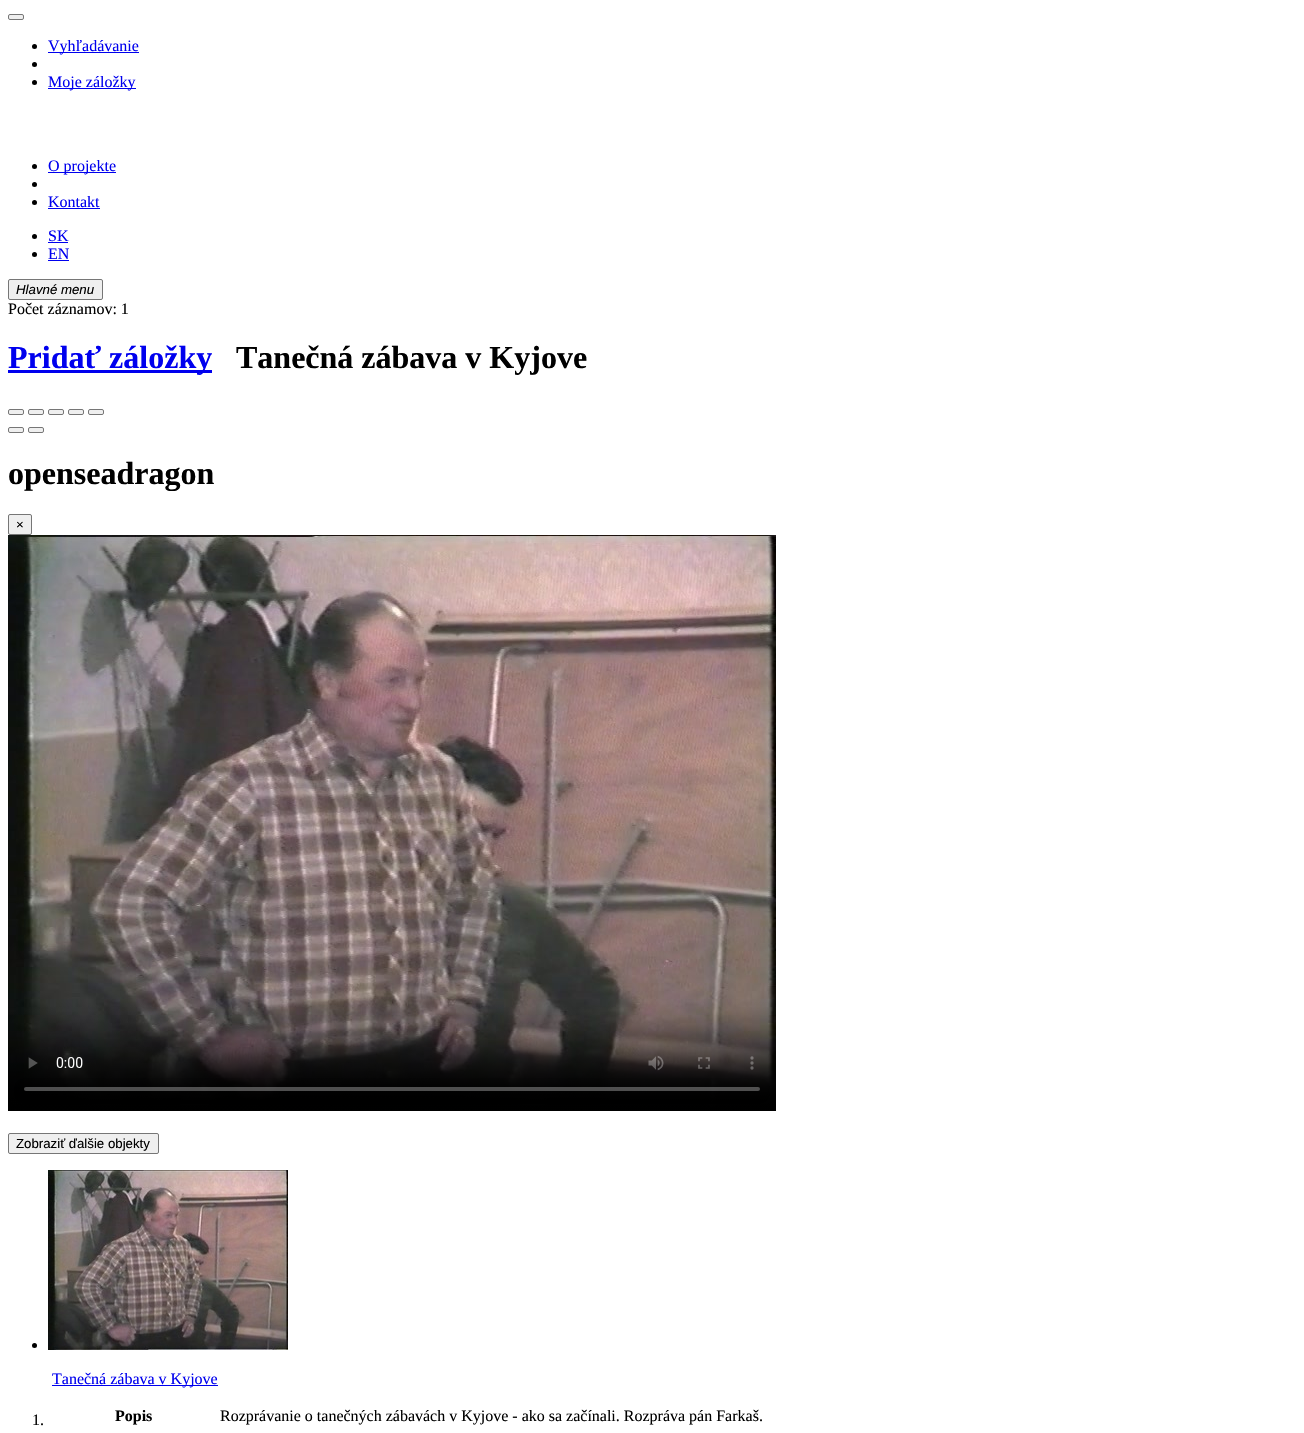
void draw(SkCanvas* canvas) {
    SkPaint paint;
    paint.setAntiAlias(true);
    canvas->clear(0xFFFFFFFF);
    paint.setColor(0xFFEFEFEF);
    canvas->drawRoundRect(SkRect::MakeXYWH(8.5f, 14.5f, 15, 5), 1.5f, 1.5f, paint);
    paint.setStyle(SkPaint::kStroke_Style);
    paint.setStrokeWidth(1);
    paint.setColor(0xFF767676);
    canvas->drawRoundRect(SkRect::MakeXYWH(8.5f, 14.5f, 15, 5), 1.5f, 1.5f, paint);
    paint.setStyle(SkPaint::kFill_Style);
    paint.setColor(0xFF000000);
    canvas->drawCircle(34.5f, 46.5f, 2.5f, paint);
    paint.setColor(0xFF0000EE);
    canvas->drawRect(SkRect::MakeXYWH(48, 52, 91, 1), paint);
    SkFont font1(fontMgr->matchFamilyStyle("Liberation Serif", SkFontStyle::Normal()), 16);
    font1.setSubpixel(true);
    canvas->drawString("Vyhľadávanie", 48, 51, font1, paint);
    paint.setColor(0xFF000000);
    canvas->drawCircle(34.5f, 64.5f, 2.5f, paint);
    canvas->drawCircle(34.5f, 82.5f, 2.5f, paint);
    paint.setColor(0xFF0000EE);
    canvas->drawRect(SkRect::MakeXYWH(48, 88, 88, 1), paint);
    canvas->drawString("Moje záložky", 48, 87, font1, paint);
    paint.setColor(0xFF000000);
    canvas->drawCircle(34.5f, 166.5f, 2.5f, paint);
    paint.setColor(0xFF0000EE);
    canvas->drawRect(SkRect::MakeXYWH(48, 172, 68, 1), paint);
    canvas->drawString("O projekte", 48, 171, font1, paint);
    paint.setColor(0xFF000000);
    canvas->drawCircle(34.5f, 184.5f, 2.5f, paint);
    canvas->drawCircle(34.5f, 202.5f, 2.5f, paint);
    paint.setColor(0xFF0000EE);
    canvas->drawString("Kontakt", 48, 207, font1, paint);
    canvas->drawRect(SkRect::MakeXYWH(48, 208, 52, 1), paint);
    paint.setColor(0xFF000000);
    canvas->drawCircle(34.5f, 236.5f, 2.5f, paint);
    paint.setColor(0xFF0000EE);
    canvas->drawString("SK", 48, 241, font1, paint);
    canvas->drawRect(SkRect::MakeXYWH(48, 242, 20, 1), paint);
    paint.setColor(0xFF000000);
    canvas->drawCircle(34.5f, 254.5f, 2.5f, paint);
    paint.setColor(0xFF0000EE);
    canvas->drawString("EN", 48, 259, font1, paint);
    canvas->drawRect(SkRect::MakeXYWH(48, 260, 21, 1), paint);
    paint.setColor(0xFFEFEFEF);
    canvas->drawRoundRect(SkRect::MakeXYWH(8.5f, 279.5f, 94, 20), 1.5f, 1.5f, paint);
    paint.setStyle(SkPaint::kStroke_Style);
    paint.setColor(0xFF767676);
    canvas->drawRoundRect(SkRect::MakeXYWH(8.5f, 279.5f, 94, 20), 1.5f, 1.5f, paint);
    SkFont font2(fontMgr->matchFamilyStyle("Liberation Sans", SkFontStyle::Italic()), 13.25f);
    font2.setSubpixel(true);
    paint.setStyle(SkPaint::kFill_Style);
    paint.setColor(0xFF000000);
    canvas->drawString("Hlavné menu", 16, 294, font2, paint);
    canvas->drawString("Počet záznamov: 1", 8, 314, font1, paint);
    paint.setColor(0xFF0000EE);
    canvas->drawRect(SkRect::MakeXYWH(8, 370, 204, 3), paint);
    SkFont font3(fontMgr->matchFamilyStyle("Liberation Serif", SkFontStyle::Bold()), 32);
    font3.setSubpixel(true);
    canvas->drawString("Pridať záložky", 8, 368, font3, paint);
    paint.setColor(0xFF000000);
    canvas->drawString("Tanečná zábava v Kyjove", 236, 368, font3, paint);
    paint.setColor(0xFFEFEFEF);
    canvas->drawRoundRect(SkRect::MakeXYWH(8.5f, 409.5f, 15, 5), 1.5f, 1.5f, paint);
    paint.setStyle(SkPaint::kStroke_Style);
    paint.setColor(0xFF767676);
    canvas->drawRoundRect(SkRect::MakeXYWH(8.5f, 409.5f, 15, 5), 1.5f, 1.5f, paint);
    paint.setStyle(SkPaint::kFill_Style);
    paint.setColor(0xFFEFEFEF);
    canvas->drawRoundRect(SkRect::MakeXYWH(28.5f, 409.5f, 15, 5), 1.5f, 1.5f, paint);
    paint.setStyle(SkPaint::kStroke_Style);
    paint.setColor(0xFF767676);
    canvas->drawRoundRect(SkRect::MakeXYWH(28.5f, 409.5f, 15, 5), 1.5f, 1.5f, paint);
    paint.setStyle(SkPaint::kFill_Style);
    paint.setColor(0xFFEFEFEF);
    canvas->drawRoundRect(SkRect::MakeXYWH(48.5f, 409.5f, 15, 5), 1.5f, 1.5f, paint);
    paint.setStyle(SkPaint::kStroke_Style);
    paint.setColor(0xFF767676);
    canvas->drawRoundRect(SkRect::MakeXYWH(48.5f, 409.5f, 15, 5), 1.5f, 1.5f, paint);
    paint.setStyle(SkPaint::kFill_Style);
    paint.setColor(0xFFEFEFEF);
    canvas->drawRoundRect(SkRect::MakeXYWH(68.5f, 409.5f, 15, 5), 1.5f, 1.5f, paint);
    paint.setStyle(SkPaint::kStroke_Style);
    paint.setColor(0xFF767676);
    canvas->drawRoundRect(SkRect::MakeXYWH(68.5f, 409.5f, 15, 5), 1.5f, 1.5f, paint);
    paint.setStyle(SkPaint::kFill_Style);
    paint.setColor(0xFFEFEFEF);
    canvas->drawRoundRect(SkRect::MakeXYWH(88.5f, 409.5f, 15, 5), 1.5f, 1.5f, paint);
    paint.setStyle(SkPaint::kStroke_Style);
    paint.setColor(0xFF767676);
    canvas->drawRoundRect(SkRect::MakeXYWH(88.5f, 409.5f, 15, 5), 1.5f, 1.5f, paint);
    paint.setStyle(SkPaint::kFill_Style);
    paint.setColor(0xFFEFEFEF);
    canvas->drawRoundRect(SkRect::MakeXYWH(8.5f, 427.5f, 15, 5), 1.5f, 1.5f, paint);
    paint.setStyle(SkPaint::kStroke_Style);
    paint.setColor(0xFF767676);
    canvas->drawRoundRect(SkRect::MakeXYWH(8.5f, 427.5f, 15, 5), 1.5f, 1.5f, paint);
    paint.setStyle(SkPaint::kFill_Style);
    paint.setColor(0xFFEFEFEF);
    canvas->drawRoundRect(SkRect::MakeXYWH(28.5f, 427.5f, 15, 5), 1.5f, 1.5f, paint);
    paint.setStyle(SkPaint::kStroke_Style);
    paint.setColor(0xFF767676);
    canvas->drawRoundRect(SkRect::MakeXYWH(28.5f, 427.5f, 15, 5), 1.5f, 1.5f, paint);
    paint.setStyle(SkPaint::kFill_Style);
    paint.setColor(0xFF000000);
    canvas->drawString("openseadragon", 8, 484, font3, paint);
    paint.setColor(0xFFEFEFEF);
    canvas->drawRoundRect(SkRect::MakeXYWH(8.5f, 514.5f, 23, 20), 1.5f, 1.5f, paint);
    paint.setStyle(SkPaint::kStroke_Style);
    paint.setColor(0xFF767676);
    canvas->drawRoundRect(SkRect::MakeXYWH(8.5f, 514.5f, 23, 20), 1.5f, 1.5f, paint);
    SkFont font4(fontMgr->matchFamilyStyle("Liberation Sans", SkFontStyle::Normal()), 13.25f);
    font4.setSubpixel(true);
    paint.setStyle(SkPaint::kFill_Style);
    paint.setColor(0xFF000000);
    canvas->drawString("×", 16, 529, font4, paint);
    canvas->drawImageRect(SkImages::DeferredFromEncodedData(SkData::MakeFromFileName("img1.png")), SkRect::MakeXYWH(8, 535, 768, 576), SkSamplingOptions());
    paint.setColor(0xFFEFEFEF);
    canvas->drawRoundRect(SkRect::MakeXYWH(8.5f, 1133.5f, 150, 20), 1.5f, 1.5f, paint);
    paint.setStyle(SkPaint::kStroke_Style);
    paint.setColor(0xFF767676);
    canvas->drawRoundRect(SkRect::MakeXYWH(8.5f, 1133.5f, 150, 20), 1.5f, 1.5f, paint);
    paint.setStyle(SkPaint::kFill_Style);
    paint.setColor(0xFF000000);
    canvas->drawString("Zobraziť ďalšie objekty", 16, 1148, font4, paint);
    canvas->drawCircle(34.5f, 1345.5f, 2.5f, paint);
    canvas->drawImageRect(SkImages::DeferredFromEncodedData(SkData::MakeFromFileName("img2.png")), SkRect::MakeXYWH(48, 1170, 240, 180), SkSamplingOptions());
    paint.setColor(0xFF0000EE);
    canvas->drawRect(SkRect::MakeXYWH(52, 1385, 166, 1), paint);
    canvas->drawString("Tanečná zábava v Kyjove", 52, 1384, font1, paint);
    paint.setColor(0xFF000000);
    canvas->drawString("1.", 32, 1425, font1, paint);
    SkFont font5(fontMgr->matchFamilyStyle("Liberation Serif", SkFontStyle::Bold()), 16);
    font5.setSubpixel(true);
    canvas->drawString("Popis", 115, 1421, font5, paint);
    canvas->drawString("Rozprávanie o tanečných zábavách v Kyjove - ako sa začínali. Rozpráva pán Farkaš.", 220, 1421, font1, paint);
}
